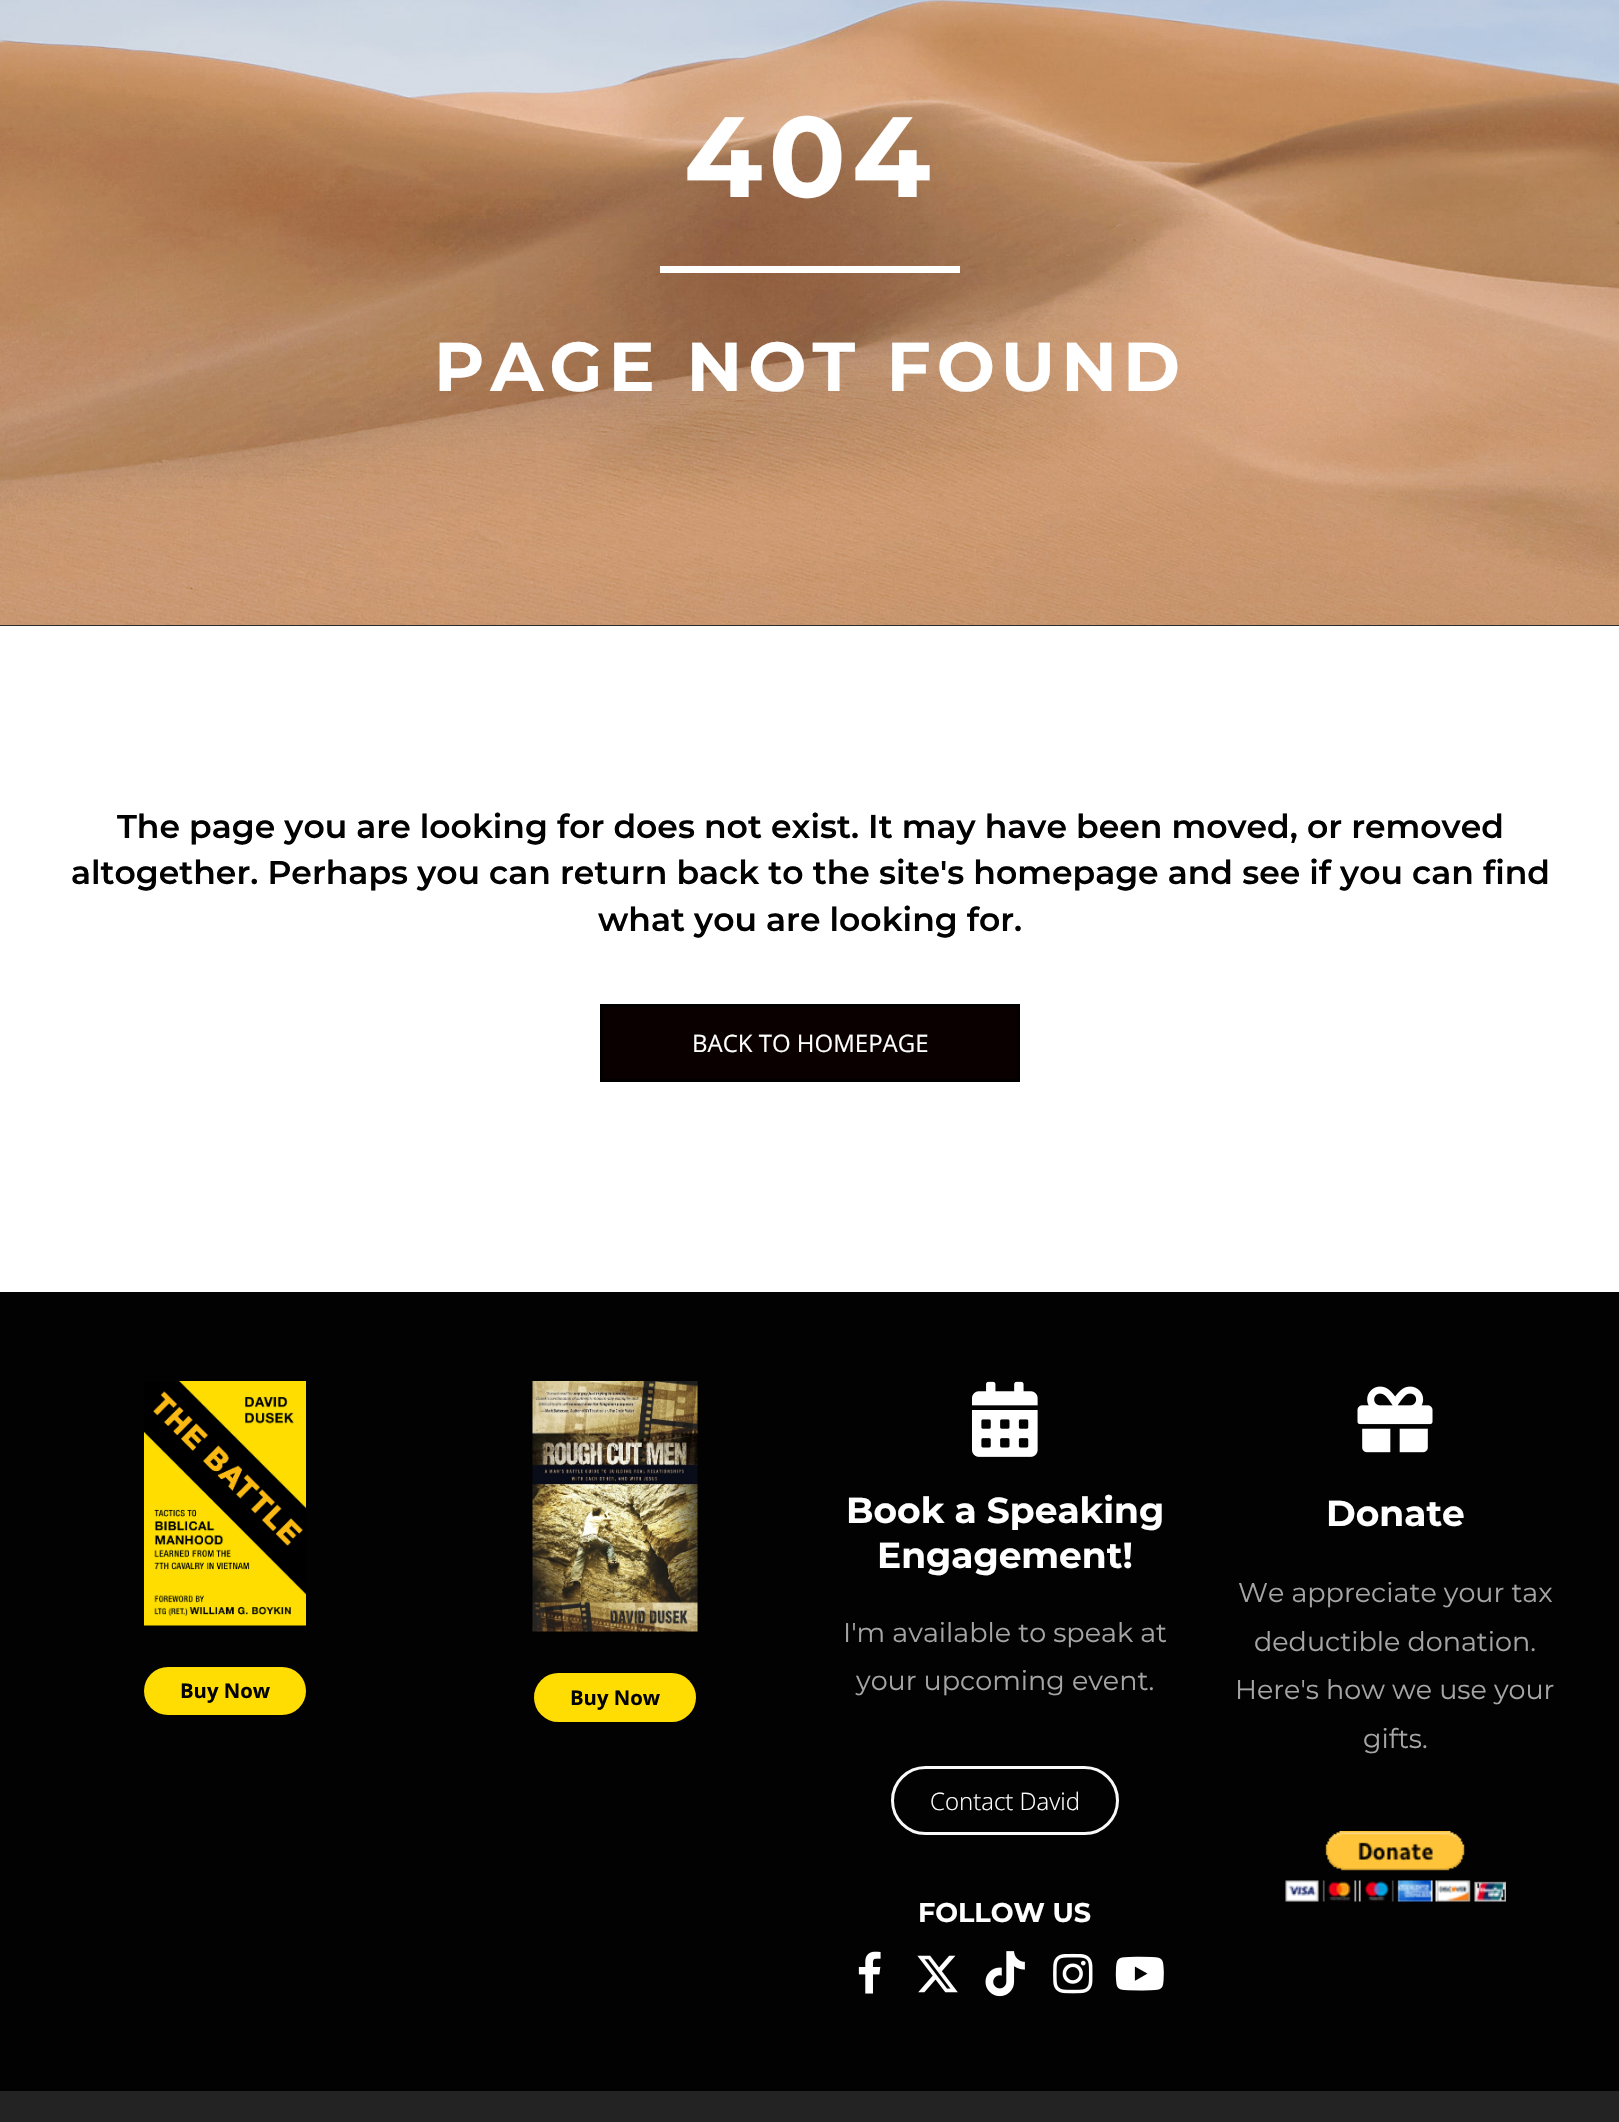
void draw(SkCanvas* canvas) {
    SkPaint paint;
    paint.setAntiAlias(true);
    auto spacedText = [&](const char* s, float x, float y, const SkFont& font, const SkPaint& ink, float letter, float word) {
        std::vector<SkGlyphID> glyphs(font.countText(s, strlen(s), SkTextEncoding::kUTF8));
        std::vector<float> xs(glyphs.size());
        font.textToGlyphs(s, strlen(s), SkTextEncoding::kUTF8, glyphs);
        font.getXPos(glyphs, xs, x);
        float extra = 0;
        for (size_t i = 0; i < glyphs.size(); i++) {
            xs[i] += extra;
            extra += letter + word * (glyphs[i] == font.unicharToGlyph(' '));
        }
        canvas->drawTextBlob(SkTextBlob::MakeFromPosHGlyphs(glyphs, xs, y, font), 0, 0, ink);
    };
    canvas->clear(0xFFFFFFFF);
    paint.setColor(0xFF2B2B2B);
    canvas->drawRect(SkRect::MakeXYWH(0, 625, 1619, 1), paint);
    canvas->drawImageRect(SkImages::DeferredFromEncodedData(SkData::MakeFromFileName("img1.png")), SkRect::MakeXYWH(0, 0, 1619, 625), SkSamplingOptions());
    SkFont font1(fontMgr->matchFamilyStyle("Montserrat", SkFontStyle::Bold()), 114);
    font1.setSubpixel(true);
    paint.setColor(0xFFFFFFFF);
    spacedText("404", 684, 197, font1, paint, 6, 0);
    canvas->drawRect(SkRect::MakeXYWH(660, 266, 300, 7), paint);
    SkFont font2(fontMgr->matchFamilyStyle("Montserrat", SkFontStyle::Bold()), 69);
    font2.setSubpixel(true);
    spacedText("PAGE NOT FOUND", 434, 391, font2, paint, 6, 0);
    SkFont font3(fontMgr->matchFamilyStyle("Montserrat", SkFontStyle(600, SkFontStyle::kNormal_Width, SkFontStyle::kUpright_Slant)), 33);
    font3.setSubpixel(true);
    paint.setColor(0xFF020202);
    canvas->drawString("The page you are looking for does not exist. It may have been moved, or removed", 117, 838, font3, paint);
    canvas->drawString("altogether. Perhaps you can return back to the site's homepage and see if you can find", 71, 884, font3, paint);
    canvas->drawString("what you are looking for.", 598, 931, font3, paint);
    paint.setColor(0xFF0A0000);
    canvas->drawRect(SkRect::MakeXYWH(601.5f, 1005.5f, 417, 75), paint);
    paint.setStyle(SkPaint::kStroke_Style);
    paint.setStrokeWidth(3);
    paint.setColor(0xFF000000);
    canvas->drawRect(SkRect::MakeXYWH(601.5f, 1005.5f, 417, 75), paint);
    SkFont font4(fontMgr->matchFamilyStyle("Open Sans", SkFontStyle::Normal()), 24);
    font4.setSubpixel(true);
    paint.setStyle(SkPaint::kFill_Style);
    paint.setColor(0xFFFFFFFF);
    canvas->drawString("BACK TO HOMEPAGE", 692, 1052, font4, paint);
    paint.setColor(0xFF020202);
    canvas->drawRect(SkRect::MakeXYWH(0, 1292, 1619, 799), paint);
    canvas->drawImageRect(SkImages::DeferredFromEncodedData(SkData::MakeFromFileName("img2.png")), SkRect::MakeXYWH(144, 1381, 162, 245), SkSamplingOptions());
    paint.setColor(0xFFFFDD02);
    canvas->drawRoundRect(SkRect::MakeXYWH(144, 1667, 162, 48), 24, 24, paint);
    SkFont font5(fontMgr->matchFamilyStyle("Open Sans", SkFontStyle::Bold()), 20.25f);
    font5.setSubpixel(true);
    paint.setColor(0xFF020202);
    canvas->drawString("Buy Now", 180, 1698, font5, paint);
    canvas->drawImageRect(SkImages::DeferredFromEncodedData(SkData::MakeFromFileName("img3.png")), SkRect::MakeXYWH(532, 1381, 166, 251), SkSamplingOptions());
    paint.setColor(0xFFFFDD02);
    canvas->drawRoundRect(SkRect::MakeXYWH(534, 1673, 162, 49), 24.5f, 24.5f, paint);
    paint.setColor(0xFF020202);
    canvas->drawString("Buy Now", 570, 1705, font5, paint);
    canvas->drawImageRect(SkImages::DeferredFromEncodedData(SkData::MakeFromFileName("img4.png")), SkRect::MakeXYWH(972, 1381, 66, 76), SkSamplingOptions());
    SkFont font6(fontMgr->matchFamilyStyle("Montserrat", SkFontStyle::Bold()), 36);
    font6.setSubpixel(true);
    paint.setColor(0xFFFFFFFF);
    canvas->drawString("Book a Speaking", 846, 1523, font6, paint);
    canvas->drawString("Engagement!", 877, 1568, font6, paint);
    SkFont font7(fontMgr->matchFamilyStyle("Montserrat", SkFontStyle::Normal()), 27);
    font7.setSubpixel(true);
    paint.setColor(0xFFA5A5A5);
    canvas->drawString("I'm available to speak at", 843, 1642, font7, paint);
    canvas->drawString("your upcoming event.", 856, 1690, font7, paint);
    paint.setStyle(SkPaint::kStroke_Style);
    paint.setColor(0xFFF9F9F9);
    canvas->drawRoundRect(SkRect::MakeXYWH(892.5f, 1767.5f, 225, 66), 33, 33, paint);
    SkFont font8(fontMgr->matchFamilyStyle("Open Sans", SkFontStyle(300, SkFontStyle::kNormal_Width, SkFontStyle::kUpright_Slant)), 24);
    font8.setSubpixel(true);
    paint.setStyle(SkPaint::kFill_Style);
    paint.setColor(0xFFFFFFFF);
    canvas->drawString("Contact David", 930, 1810, font8, paint);
    SkFont font9(fontMgr->matchFamilyStyle("Montserrat", SkFontStyle::Bold()), 27);
    font9.setSubpixel(true);
    canvas->drawString("FOLLOW US", 918, 1922, font9, paint);
    canvas->drawImageRect(SkImages::DeferredFromEncodedData(SkData::MakeFromFileName("img5.png")), SkRect::MakeXYWH(858, 1951, 23, 43), SkSamplingOptions());
    canvas->drawImageRect(SkImages::DeferredFromEncodedData(SkData::MakeFromFileName("img6.png")), SkRect::MakeXYWH(917, 1955, 41, 38), SkSamplingOptions());
    canvas->drawImageRect(SkImages::DeferredFromEncodedData(SkData::MakeFromFileName("img7.png")), SkRect::MakeXYWH(985, 1951, 40, 46), SkSamplingOptions());
    canvas->drawImageRect(SkImages::DeferredFromEncodedData(SkData::MakeFromFileName("img8.png")), SkRect::MakeXYWH(1053, 1953, 40, 41), SkSamplingOptions());
    canvas->drawImageRect(SkImages::DeferredFromEncodedData(SkData::MakeFromFileName("img9.png")), SkRect::MakeXYWH(1115, 1956, 49, 35), SkSamplingOptions());
    canvas->drawImageRect(SkImages::DeferredFromEncodedData(SkData::MakeFromFileName("img10.png")), SkRect::MakeXYWH(1357, 1386, 76, 67), SkSamplingOptions());
    canvas->drawString("Donate", 1326, 1526, font6, paint);
    paint.setColor(0xFFA5A5A5);
    canvas->drawString("We appreciate your tax", 1238, 1602, font7, paint);
    canvas->drawString("deductible donation.", 1254, 1651, font7, paint);
    canvas->drawString("Here's how we use your", 1235, 1699, font7, paint);
    canvas->drawString("gifts.", 1363, 1748, font7, paint);
    canvas->drawImageRect(SkImages::DeferredFromEncodedData(SkData::MakeFromFileName("img11.png")), SkRect::MakeXYWH(1285, 1831, 221, 71), SkSamplingOptions());
    paint.setColor(0xFF232323);
    canvas->drawRect(SkRect::MakeXYWH(0, 2091, 1619, 31), paint);
}
